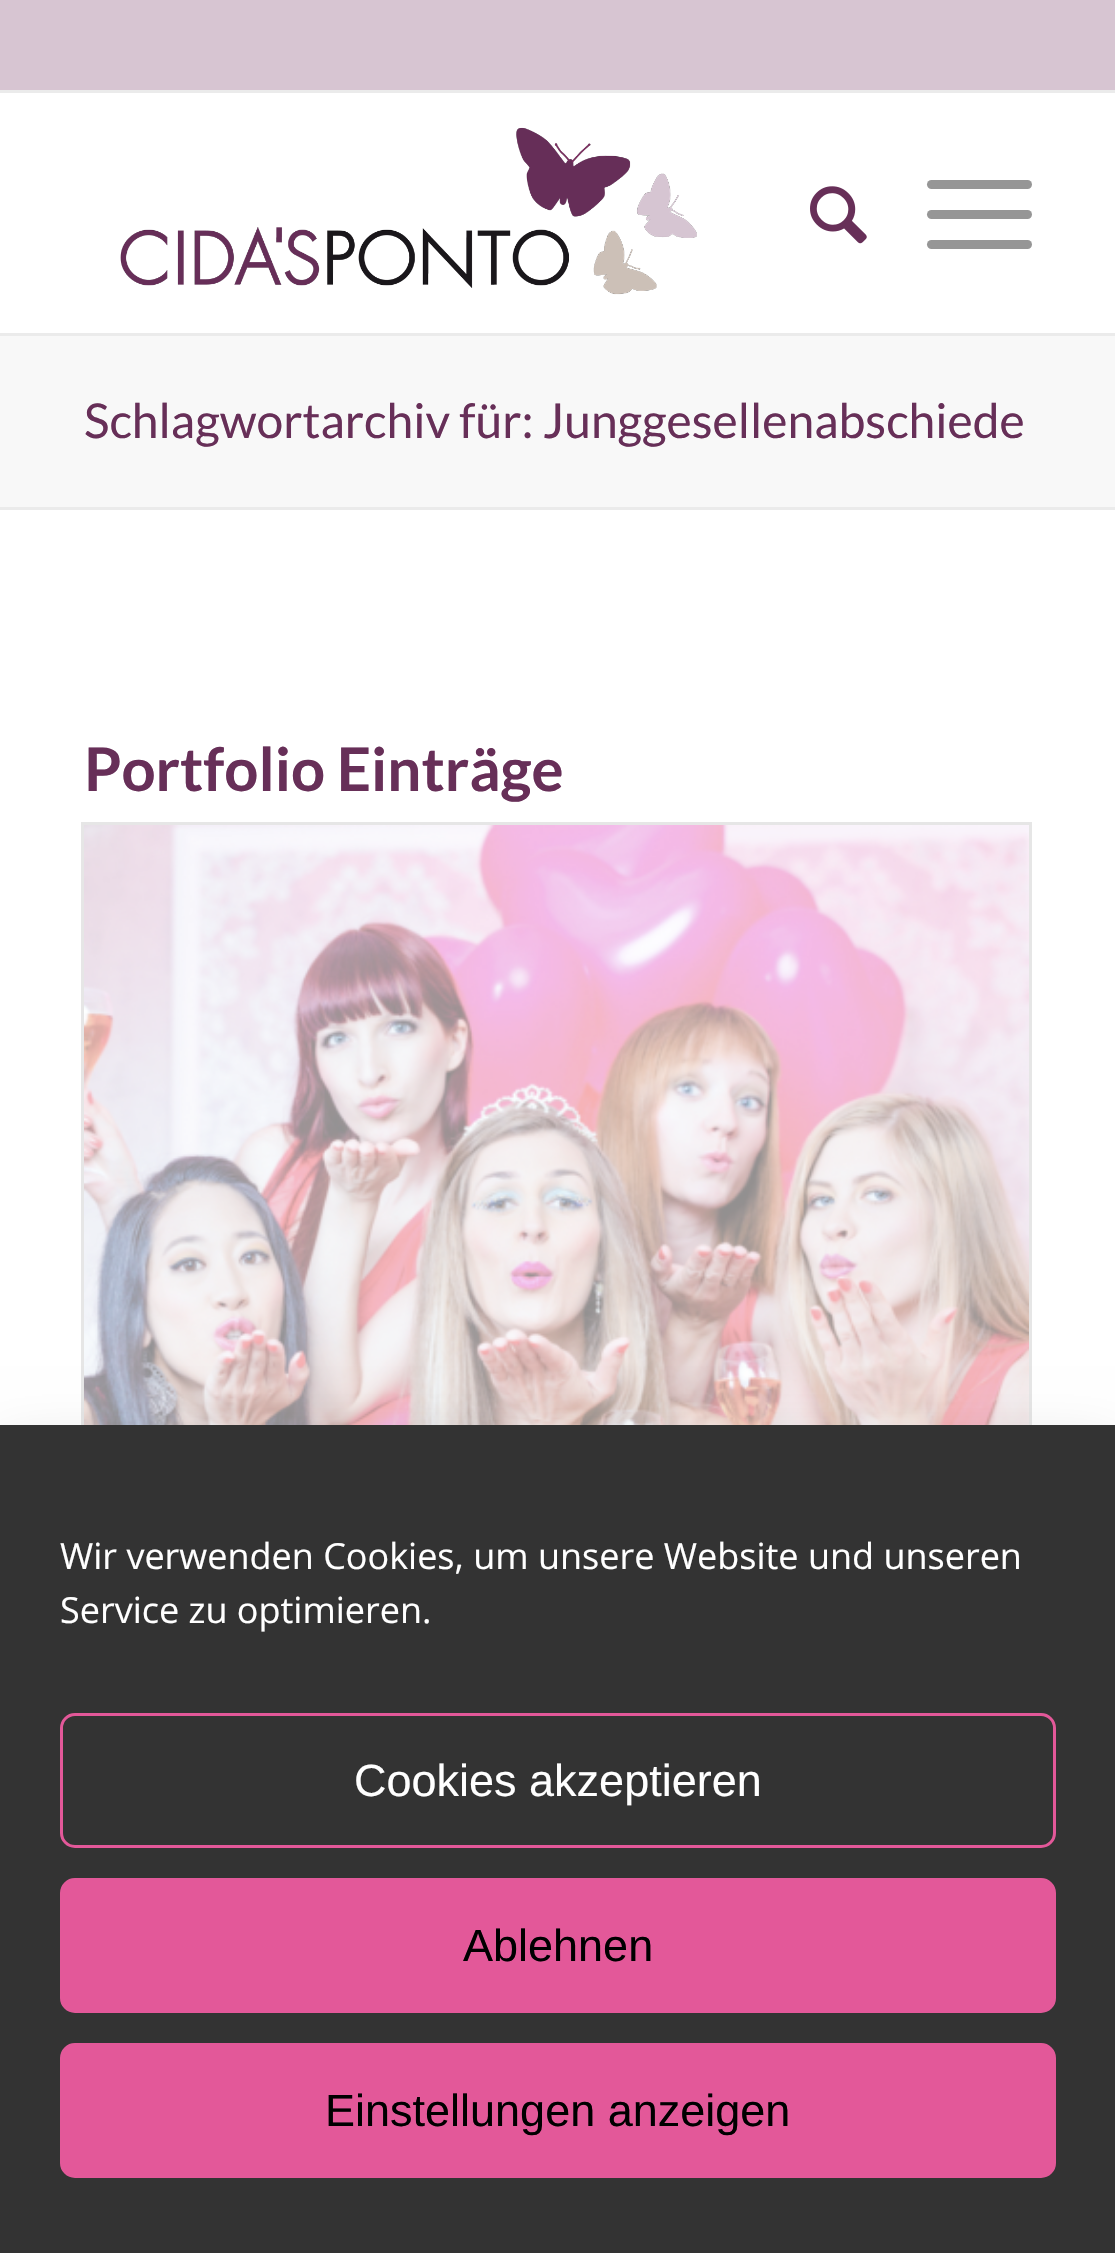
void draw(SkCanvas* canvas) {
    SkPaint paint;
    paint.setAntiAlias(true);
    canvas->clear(0xFFFFFFFF);
    paint.setColor(0xFFD7C5D2);
    canvas->drawRect(SkRect::MakeXYWH(0, 0, 1115, 90), paint);
    paint.setColor(0xFFEBEBEB);
    canvas->drawRect(SkRect::MakeXYWH(0, 90, 1115, 3), paint);
    canvas->drawRect(SkRect::MakeXYWH(0, 333, 1115, 3), paint);
    canvas->drawImageRect(SkImages::DeferredFromEncodedData(SkData::MakeFromFileName("img1.png")), SkRect::MakeXYWH(120, 127, 577, 168), SkSamplingOptions());
    canvas->drawImageRect(SkImages::DeferredFromEncodedData(SkData::MakeFromFileName("img2.png")), SkRect::MakeXYWH(810, 186, 57, 58), SkSamplingOptions());
    paint.setColor(0xFF969696);
    canvas->drawRoundRect(SkRect::MakeXYWH(927, 210, 105, 9), 4.5f, 4.5f, paint);
    canvas->drawRoundRect(SkRect::MakeXYWH(927, 180, 105, 9), 4.5f, 4.5f, paint);
    canvas->drawRoundRect(SkRect::MakeXYWH(927, 240, 105, 9), 4.5f, 4.5f, paint);
    paint.setColor(0xFFF8F8F8);
    canvas->drawRect(SkRect::MakeXYWH(0, 336, 1115, 171), paint);
    SkFont font1(fontMgr->matchFamilyStyle("Lato", SkFontStyle::Normal()), 48);
    font1.setSubpixel(true);
    paint.setColor(0xFF672F58);
    canvas->drawString("Schlagwortarchiv für: Junggesellenabschiede", 84, 438, font1, paint);
    paint.setColor(0xFFEBEBEB);
    canvas->drawRect(SkRect::MakeXYWH(0, 507, 1115, 3), paint);
    SkFont font2(fontMgr->matchFamilyStyle("Lato", SkFontStyle::Bold()), 60);
    font2.setSubpixel(true);
    paint.setColor(0xFF672F58);
    canvas->drawString("Portfolio Einträge", 84, 791, font2, paint);
    paint.setStyle(SkPaint::kStroke_Style);
    paint.setStrokeWidth(3);
    paint.setColor(0xFFE6E6E6);
    canvas->drawRect(SkRect::MakeXYWH(82.5f, 823.5f, 948, 930), paint);
    canvas->drawImageRect(SkImages::DeferredFromEncodedData(SkData::MakeFromFileName("img3.png")), SkRect::MakeXYWH(84, 825, 945, 600), SkSamplingOptions());
    paint.setStyle(SkPaint::kFill_Style);
    paint.setColor(0x30000000);
    paint.setMaskFilter(SkMaskFilter::MakeBlur(kNormal_SkBlurStyle, 30));
    canvas->drawRect(SkRect::MakeXYWH(0, 1455, 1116, 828), paint);
    paint.setMaskFilter(nullptr);
    paint.setColor(0xFF333333);
    canvas->drawRect(SkRect::MakeXYWH(0, 1425, 1115, 828), paint);
    SkFont font3(fontMgr->matchFamilyStyle("Open Sans", SkFontStyle::Normal()), 36);
    font3.setSubpixel(true);
    paint.setColor(0xFFFFFFFF);
    canvas->drawString("Wir verwenden Cookies, um unsere Website und unseren", 60, 1569, font3, paint);
    canvas->drawString("Service zu optimieren.", 60, 1623, font3, paint);
    paint.setStyle(SkPaint::kStroke_Style);
    paint.setColor(0xFFE35899);
    canvas->drawRoundRect(SkRect::MakeXYWH(61.5f, 1714.5f, 993, 132), 13.5f, 13.5f, paint);
    SkFont font4(fontMgr->matchFamilyStyle("Liberation Sans", SkFontStyle::Normal()), 45);
    font4.setSubpixel(true);
    paint.setStyle(SkPaint::kFill_Style);
    paint.setColor(0xFFFFFFFF);
    canvas->drawString("Cookies akzeptieren", 354, 1796, font4, paint);
    paint.setColor(0xFFE35899);
    canvas->drawRoundRect(SkRect::MakeXYWH(61.5f, 1879.5f, 993, 132), 13.5f, 13.5f, paint);
    paint.setStyle(SkPaint::kStroke_Style);
    canvas->drawRoundRect(SkRect::MakeXYWH(61.5f, 1879.5f, 993, 132), 13.5f, 13.5f, paint);
    paint.setStyle(SkPaint::kFill_Style);
    paint.setColor(0xFF000000);
    canvas->drawString("Ablehnen", 463, 1961, font4, paint);
    paint.setColor(0xFFE35899);
    canvas->drawRoundRect(SkRect::MakeXYWH(61.5f, 2044.5f, 993, 132), 13.5f, 13.5f, paint);
    paint.setStyle(SkPaint::kStroke_Style);
    canvas->drawRoundRect(SkRect::MakeXYWH(61.5f, 2044.5f, 993, 132), 13.5f, 13.5f, paint);
    paint.setStyle(SkPaint::kFill_Style);
    paint.setColor(0xFF000000);
    canvas->drawString("Einstellungen anzeigen", 325, 2126, font4, paint);
}
